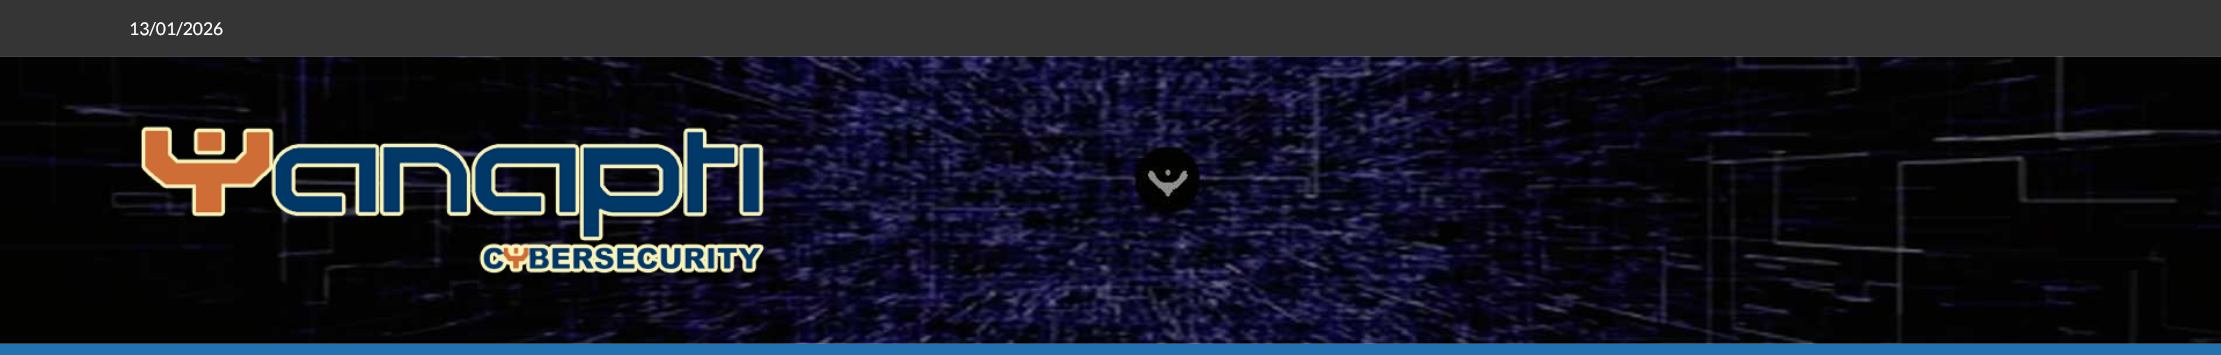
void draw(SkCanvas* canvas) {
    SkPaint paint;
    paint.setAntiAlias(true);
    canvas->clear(0xFFFFFFFF);
    paint.setColor(0xFF353535);
    canvas->drawRect(SkRect::MakeXYWH(0, 0, 2221, 56), paint);
    SkFont font1(fontMgr->matchFamilyStyle("Lato", SkFontStyle::Normal()), 17.5f);
    font1.setSubpixel(true);
    paint.setColor(0xFFFFFFFF);
    canvas->drawString("13/01/2026", 129, 35, font1, paint);
    canvas->drawImageRect(SkImages::DeferredFromEncodedData(SkData::MakeFromFileName("img1.png")), SkRect::MakeXYWH(0, 56, 2221, 288), SkSamplingOptions());
    canvas->drawImageRect(SkImages::DeferredFromEncodedData(SkData::MakeFromFileName("img2.png")), SkRect::MakeXYWH(141, 126, 624, 148), SkSamplingOptions());
    paint.setColor(0xFF2271B1);
    canvas->drawRect(SkRect::MakeXYWH(0, 344, 2221, 11), paint);
}
